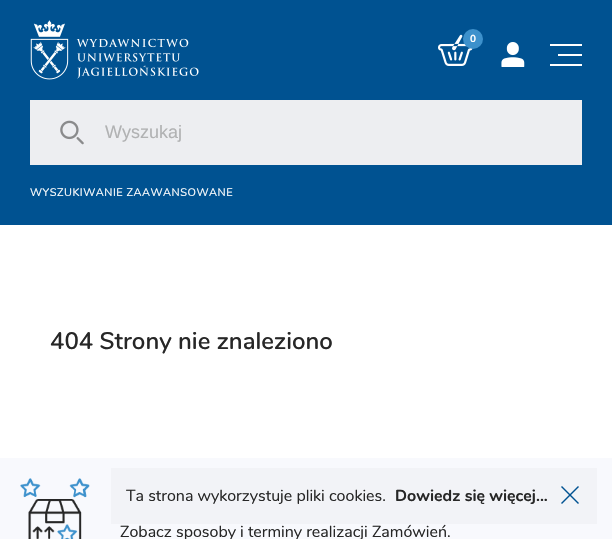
void draw(SkCanvas* canvas) {
    SkPaint paint;
    paint.setAntiAlias(true);
    auto spacedText = [&](const char* s, float x, float y, const SkFont& font, const SkPaint& ink, float letter, float word) {
        std::vector<SkGlyphID> glyphs(font.countText(s, strlen(s), SkTextEncoding::kUTF8));
        std::vector<float> xs(glyphs.size());
        font.textToGlyphs(s, strlen(s), SkTextEncoding::kUTF8, glyphs);
        font.getXPos(glyphs, xs, x);
        float extra = 0;
        for (size_t i = 0; i < glyphs.size(); i++) {
            xs[i] += extra;
            extra += letter + word * (glyphs[i] == font.unicharToGlyph(' '));
        }
        canvas->drawTextBlob(SkTextBlob::MakeFromPosHGlyphs(glyphs, xs, y, font), 0, 0, ink);
    };
    canvas->clear(0xFFFFFFFF);
    paint.setColor(0xFF005291);
    canvas->drawRect(SkRect::MakeXYWH(0, 0, 612, 225), paint);
    canvas->drawImageRect(SkImages::DeferredFromEncodedData(SkData::MakeFromFileName("img1.png")), SkRect::MakeXYWH(30, 20, 169, 60), SkSamplingOptions());
    canvas->drawImageRect(SkImages::DeferredFromEncodedData(SkData::MakeFromFileName("img2.png")), SkRect::MakeXYWH(438, 34, 35, 32), SkSamplingOptions());
    paint.setColor(0xFF3D91CC);
    canvas->drawCircle(473, 39, 10, paint);
    SkFont font1(fontMgr->matchFamilyStyle("Nunito", SkFontStyle::Bold()), 10);
    font1.setSubpixel(true);
    paint.setColor(0xFFFFFFFF);
    canvas->drawString("0", 470, 42, font1, paint);
    canvas->drawImageRect(SkImages::DeferredFromEncodedData(SkData::MakeFromFileName("img3.png")), SkRect::MakeXYWH(501, 42, 24, 25), SkSamplingOptions());
    canvas->drawRect(SkRect::MakeXYWH(550, 44, 32, 2), paint);
    canvas->drawRect(SkRect::MakeXYWH(558, 54, 24, 2), paint);
    canvas->drawRect(SkRect::MakeXYWH(550, 64, 32, 2), paint);
    paint.setColor(0xFFEDEEF1);
    canvas->drawRect(SkRect::MakeXYWH(30, 100, 552, 65), paint);
    canvas->drawImageRect(SkImages::DeferredFromEncodedData(SkData::MakeFromFileName("img4.png")), SkRect::MakeXYWH(60, 120, 24, 25), SkSamplingOptions());
    SkFont font2(fontMgr->matchFamilyStyle("Liberation Sans", SkFontStyle::Normal()), 18);
    font2.setSubpixel(true);
    paint.setColor(0xFFB1B2B3);
    canvas->drawString("Wyszukaj", 105, 138, font2, paint);
    SkFont font3(fontMgr->matchFamilyStyle("Nunito", SkFontStyle::Normal()), 11);
    font3.setSubpixel(true);
    paint.setColor(0xFFFFFFFF);
    spacedText("WYSZUKIWANIE ZAAWANSOWANE", 30, 196, font3, paint, 0.5f, 0);
    SkFont font4(fontMgr->matchFamilyStyle("Nunito", SkFontStyle(600, SkFontStyle::kNormal_Width, SkFontStyle::kUpright_Slant)), 24);
    font4.setSubpixel(true);
    paint.setColor(0xFF272727);
    canvas->drawString("404 Strony nie znaleziono", 50, 349, font4, paint);
    paint.setColor(0xFFF8F9FD);
    canvas->drawRect(SkRect::MakeXYWH(0, 458, 612, 81), paint);
    paint.setColor(0xFFF2F3F7);
    canvas->drawRect(SkRect::MakeXYWH(111, 468, 486, 56), paint);
    SkFont font5(fontMgr->matchFamilyStyle("Nunito", SkFontStyle::Normal()), 16);
    font5.setSubpixel(true);
    paint.setColor(0xFF272727);
    canvas->drawString("Ta strona wykorzystuje pliki cookies.", 126, 501, font5, paint);
    SkFont font6(fontMgr->matchFamilyStyle("Nunito", SkFontStyle::Bold()), 16);
    font6.setSubpixel(true);
    canvas->drawString("Dowiedz się więcej...", 395, 501, font6, paint);
    paint.setColor(0xFF005291);
    canvas->drawPath(SkPathBuilder().moveTo(561, 487).lineTo(562, 486).lineTo(579, 503).lineTo(578, 504).close().detach(), paint);
    canvas->drawPath(SkPathBuilder().moveTo(578, 486).lineTo(579, 487).lineTo(562, 504).lineTo(561, 503).close().detach(), paint);
    canvas->drawImageRect(SkImages::DeferredFromEncodedData(SkData::MakeFromFileName("img5.png")), SkRect::MakeXYWH(20, 478, 70, 61), SkSamplingOptions());
    paint.setColor(0xFF272727);
    canvas->drawString("Zobacz sposoby i terminy realizacji Zamówień.", 120, 537, font5, paint);
}
